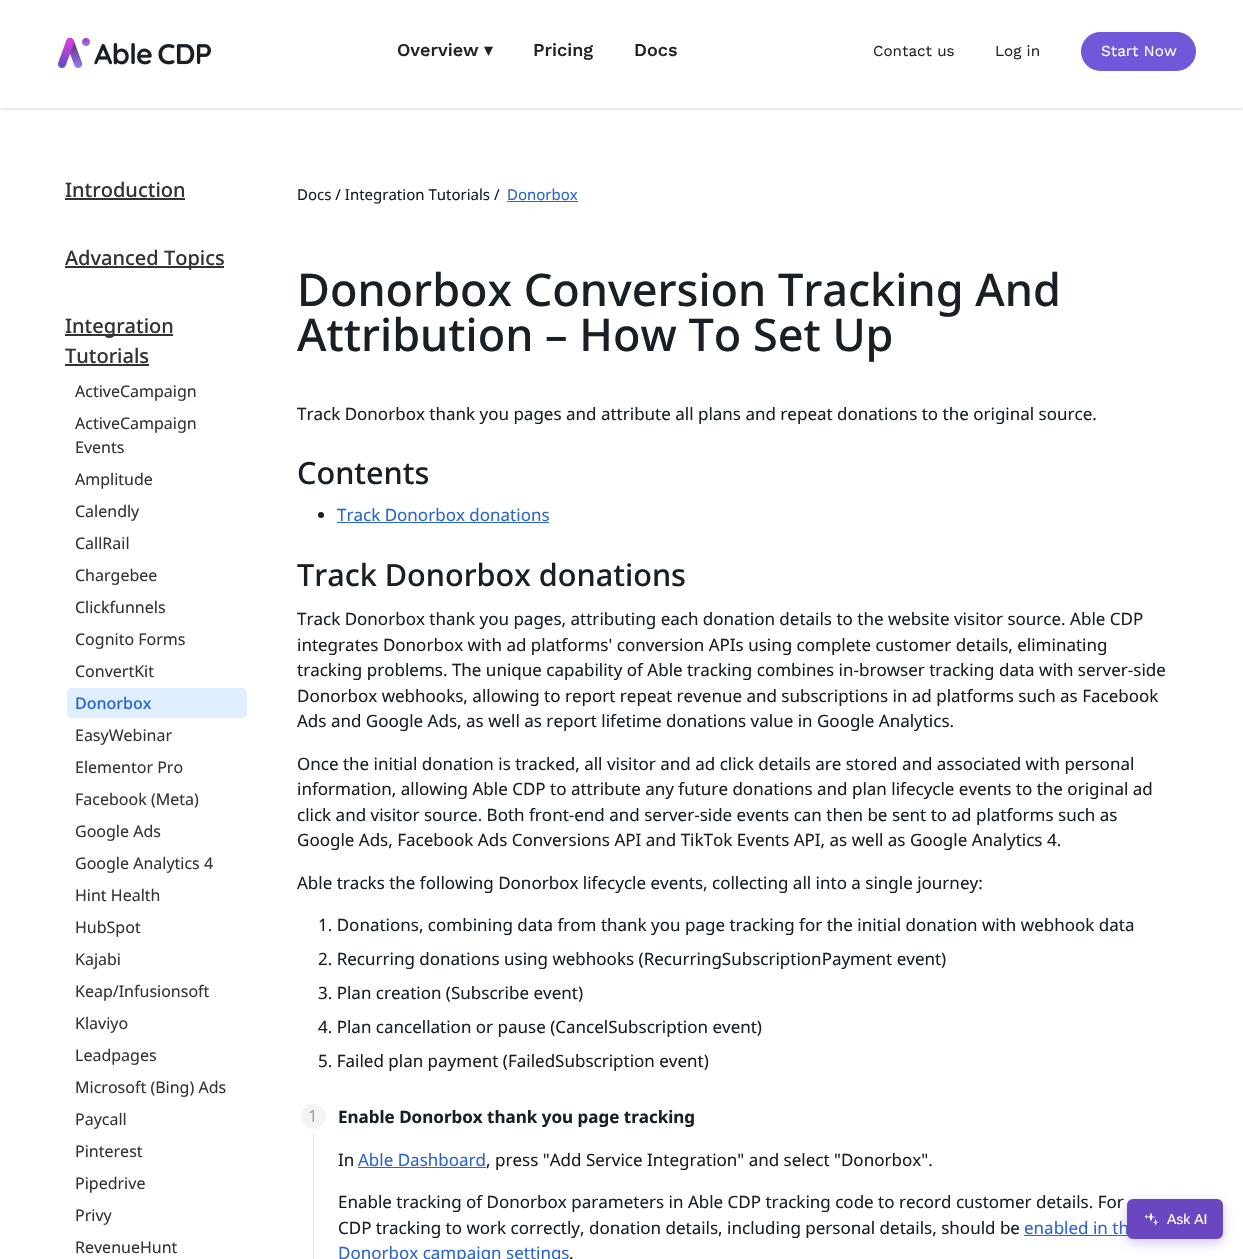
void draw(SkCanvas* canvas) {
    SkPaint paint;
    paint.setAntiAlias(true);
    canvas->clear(0xFFFFFFFF);
    canvas->save();
    canvas->clipRect(SkRect::MakeXYWH(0, 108, 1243, 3));
    paint.setColor(0x40000000);
    paint.setMaskFilter(SkMaskFilter::MakeBlur(kNormal_SkBlurStyle, 2));
    canvas->drawRect(SkRect::MakeXYWH(0, 0, 1243, 108), paint);
    paint.setMaskFilter(nullptr);
    canvas->restore();
    canvas->drawImageRect(SkImages::DeferredFromEncodedData(SkData::MakeFromFileName("img1.png")), SkRect::MakeXYWH(58, 38, 153, 30), SkSamplingOptions());
    SkFont font1(fontMgr->matchFamilyStyle("Work Sans", SkFontStyle(500, SkFontStyle::kNormal_Width, SkFontStyle::kUpright_Slant)), 18);
    font1.setSubpixel(true);
    paint.setColor(0xFF222222);
    canvas->drawString("Overview", 397, 56, font1, paint);
    SkFont font2(fontMgr->matchFamilyStyle("DejaVu Sans", SkFontStyle::Normal()), 18);
    font2.setSubpixel(true);
    canvas->drawString("▾", 484, 56, font2, paint);
    canvas->drawString("Pricing", 533, 56, font1, paint);
    canvas->drawString("Docs", 634, 56, font1, paint);
    SkFont font3(fontMgr->matchFamilyStyle("Work Sans", SkFontStyle::Normal()), 15.25f);
    font3.setSubpixel(true);
    canvas->drawString("Contact us", 873, 56, font3, paint);
    canvas->drawString("Log in", 995, 56, font3, paint);
    paint.setColor(0xFF7157D9);
    canvas->drawRoundRect(SkRect::MakeXYWH(1081, 32, 115, 39), 19.5f, 19.5f, paint);
    paint.setColor(0xFFFFFFFF);
    canvas->drawString("Start Now", 1101, 56, font3, paint);
    SkFont font4(fontMgr->matchFamilyStyle("Noto Sans", SkFontStyle(500, SkFontStyle::kNormal_Width, SkFontStyle::kUpright_Slant)), 20);
    font4.setSubpixel(true);
    paint.setColor(0xFF333333);
    canvas->drawString("Introduction", 65, 197, font4, paint);
    canvas->drawRect(SkRect::MakeXYWH(65, 198, 120, 2), paint);
    canvas->drawRect(SkRect::MakeXYWH(65, 266, 159, 2), paint);
    canvas->drawString("Advanced Topics", 65, 265, font4, paint);
    canvas->drawRect(SkRect::MakeXYWH(65, 334, 108, 2), paint);
    canvas->drawString("Integration", 65, 333, font4, paint);
    canvas->drawString("Tutorials", 65, 363, font4, paint);
    canvas->drawRect(SkRect::MakeXYWH(65, 364, 84, 2), paint);
    SkFont font5(fontMgr->matchFamilyStyle("Noto Sans", SkFontStyle::Normal()), 16);
    font5.setSubpixel(true);
    canvas->drawString("ActiveCampaign", 75, 397, font5, paint);
    canvas->drawString("ActiveCampaign", 75, 429, font5, paint);
    canvas->drawString("Events", 75, 453, font5, paint);
    canvas->drawString("Amplitude", 75, 485, font5, paint);
    canvas->drawString("Calendly", 75, 517, font5, paint);
    canvas->drawString("CallRail", 75, 549, font5, paint);
    canvas->drawString("Chargebee", 75, 581, font5, paint);
    canvas->drawString("Clickfunnels", 75, 613, font5, paint);
    canvas->drawString("Cognito Forms", 75, 645, font5, paint);
    canvas->drawString("ConvertKit", 75, 677, font5, paint);
    paint.setColor(0xFFE0EFFF);
    canvas->drawRoundRect(SkRect::MakeXYWH(67, 688, 180, 30), 5, 5, paint);
    SkFont font6(fontMgr->matchFamilyStyle("Noto Sans", SkFontStyle(500, SkFontStyle::kNormal_Width, SkFontStyle::kUpright_Slant)), 16);
    font6.setSubpixel(true);
    paint.setColor(0xFF2965CC);
    canvas->drawString("Donorbox", 75, 709, font6, paint);
    paint.setColor(0xFF333333);
    canvas->drawString("EasyWebinar", 75, 741, font5, paint);
    canvas->drawString("Elementor Pro", 75, 773, font5, paint);
    canvas->drawString("Facebook (Meta)", 75, 805, font5, paint);
    canvas->drawString("Google Ads", 75, 837, font5, paint);
    canvas->drawString("Google Analytics 4", 75, 869, font5, paint);
    canvas->drawString("Hint Health", 75, 901, font5, paint);
    canvas->drawString("HubSpot", 75, 933, font5, paint);
    canvas->drawString("Kajabi", 75, 965, font5, paint);
    canvas->drawString("Keap/Infusionsoft", 75, 997, font5, paint);
    canvas->drawString("Klaviyo", 75, 1029, font5, paint);
    canvas->drawString("Leadpages", 75, 1061, font5, paint);
    canvas->drawString("Microsoft (Bing) Ads", 75, 1093, font5, paint);
    canvas->drawString("Paycall", 75, 1125, font5, paint);
    canvas->drawString("Pinterest", 75, 1157, font5, paint);
    canvas->drawString("Pipedrive", 75, 1189, font5, paint);
    canvas->drawString("Privy", 75, 1221, font5, paint);
    canvas->drawString("RevenueHunt", 75, 1253, font5, paint);
    SkFont font7(fontMgr->matchFamilyStyle("Noto Sans", SkFontStyle::Normal()), 15);
    font7.setSubpixel(true);
    paint.setColor(0xFF182026);
    canvas->drawString("Docs / Integration Tutorials /", 297, 200, font7, paint);
    paint.setColor(0xFF2965CC);
    canvas->drawString("Donorbox", 507, 200, font7, paint);
    canvas->drawRect(SkRect::MakeXYWH(507, 201, 71, 1), paint);
    SkFont font8(fontMgr->matchFamilyStyle("Noto Sans", SkFontStyle(500, SkFontStyle::kNormal_Width, SkFontStyle::kUpright_Slant)), 45);
    font8.setSubpixel(true);
    paint.setColor(0xFF182026);
    canvas->drawString("Donorbox Conversion Tracking And", 297, 306, font8, paint);
    canvas->drawString("Attribution – How To Set Up", 297, 351, font8, paint);
    SkFont font9(fontMgr->matchFamilyStyle("Noto Sans", SkFontStyle::Normal()), 17);
    font9.setSubpixel(true);
    canvas->drawString("Track Donorbox thank you pages and attribute all plans and repeat donations to the original source.", 297, 420, font9, paint);
    SkFont font10(fontMgr->matchFamilyStyle("Noto Sans", SkFontStyle(500, SkFontStyle::kNormal_Width, SkFontStyle::kUpright_Slant)), 30.6f);
    font10.setSubpixel(true);
    canvas->drawString("Contents", 297, 484, font10, paint);
    canvas->drawCircle(321, 515, 3, paint);
    paint.setColor(0xFF2965CC);
    canvas->drawString("Track Donorbox donations", 337, 521, font9, paint);
    canvas->drawRect(SkRect::MakeXYWH(337, 522, 212, 1), paint);
    paint.setColor(0xFF182026);
    canvas->drawString("Track Donorbox donations", 297, 586, font10, paint);
    canvas->drawString("Track Donorbox thank you pages, attributing each donation details to the website visitor source. Able CDP", 297, 625, font9, paint);
    canvas->drawString("integrates Donorbox with ad platforms' conversion APIs using complete customer details, eliminating", 297, 651, font9, paint);
    canvas->drawString("tracking problems. The unique capability of Able tracking combines in-browser tracking data with server-side", 297, 676, font9, paint);
    canvas->drawString("Donorbox webhooks, allowing to report repeat revenue and subscriptions in ad platforms such as Facebook", 297, 702, font9, paint);
    canvas->drawString("Ads and Google Ads, as well as report lifetime donations value in Google Analytics.", 297, 727, font9, paint);
    canvas->drawString("Once the initial donation is tracked, all visitor and ad click details are stored and associated with personal", 297, 770, font9, paint);
    canvas->drawString("information, allowing Able CDP to attribute any future donations and plan lifecycle events to the original ad", 297, 795, font9, paint);
    canvas->drawString("click and visitor source. Both front-end and server-side events can then be sent to ad platforms such as", 297, 821, font9, paint);
    canvas->drawString("Google Ads, Facebook Ads Conversions API and TikTok Events API, as well as Google Analytics 4.", 297, 846, font9, paint);
    canvas->drawString("Able tracks the following Donorbox lifecycle events, collecting all into a single journey:", 297, 889, font9, paint);
    canvas->drawString("1. Donations, combining data from thank you page tracking for the initial donation with webhook data", 318, 931, font9, paint);
    canvas->drawString("2. Recurring donations using webhooks (RecurringSubscriptionPayment event)", 318, 965, font9, paint);
    canvas->drawString("3. Plan creation (Subscribe event)", 318, 999, font9, paint);
    canvas->drawString("4. Plan cancellation or pause (CancelSubscription event)", 318, 1033, font9, paint);
    canvas->drawString("5. Failed plan payment (FailedSubscription event)", 318, 1067, font9, paint);
    paint.setColor(0xFFE5E7EB);
    canvas->drawRect(SkRect::MakeXYWH(313, 1133, 1, 126), paint);
    paint.setColor(0xFFF3F4F6);
    canvas->drawCircle(313.5f, 1116.5f, 14.5f, paint);
    paint.setStyle(SkPaint::kStroke_Style);
    paint.setStrokeWidth(4);
    paint.setColor(0xFFFFFFFF);
    canvas->drawCircle(313.5f, 1116.5f, 14.5f, paint);
    paint.setStyle(SkPaint::kFill_Style);
    paint.setColor(0xFFA3A3A3);
    canvas->drawString("1", 308, 1122, font9, paint);
    SkFont font11(fontMgr->matchFamilyStyle("Noto Sans", SkFontStyle::Bold()), 17);
    font11.setSubpixel(true);
    paint.setColor(0xFF182026);
    canvas->drawString("Enable Donorbox thank you page tracking", 338, 1123, font11, paint);
    canvas->drawString("In", 338, 1166, font9, paint);
    paint.setColor(0xFF2965CC);
    canvas->drawString("Able Dashboard", 358, 1166, font9, paint);
    canvas->drawRect(SkRect::MakeXYWH(358, 1167, 128, 1), paint);
    paint.setColor(0xFF182026);
    canvas->drawString(", press \"Add Service Integration\" and select \"Donorbox\".", 486, 1166, font9, paint);
    canvas->drawString("Enable tracking of Donorbox parameters in Able CDP tracking code to record customer details. For", 338, 1208, font9, paint);
    canvas->drawString("CDP tracking to work correctly, donation details, including personal details, should be", 338, 1234, font9, paint);
    paint.setColor(0xFF2965CC);
    canvas->drawString("enabled in th", 1024, 1234, font9, paint);
    canvas->drawRect(SkRect::MakeXYWH(1024, 1235, 104, 1), paint);
    canvas->drawString("Donorbox campaign settings", 338, 1259, font9, paint);
    paint.setColor(0xFF182026);
    canvas->drawString(".", 569, 1259, font9, paint);
    paint.setColor(0x4D6B46C1);
    paint.setMaskFilter(SkMaskFilter::MakeBlur(kNormal_SkBlurStyle, 6));
    canvas->drawRoundRect(SkRect::MakeXYWH(1127, 1203, 96, 40), 6, 6, paint);
    paint.setMaskFilter(nullptr);
    paint.setColor(0xFF6B46C1);
    canvas->drawRoundRect(SkRect::MakeXYWH(1127, 1199, 96, 40), 6, 6, paint);
    canvas->drawImageRect(SkImages::DeferredFromEncodedData(SkData::MakeFromFileName("img2.png")), SkRect::MakeXYWH(1144, 1212, 15, 14), SkSamplingOptions());
    SkFont font12(fontMgr->matchFamilyStyle("Liberation Sans", SkFontStyle::Normal()), 14);
    font12.setSubpixel(true);
    paint.setColor(0xFFFFFFFF);
    canvas->drawString("Ask AI", 1167, 1224, font12, paint);
}
